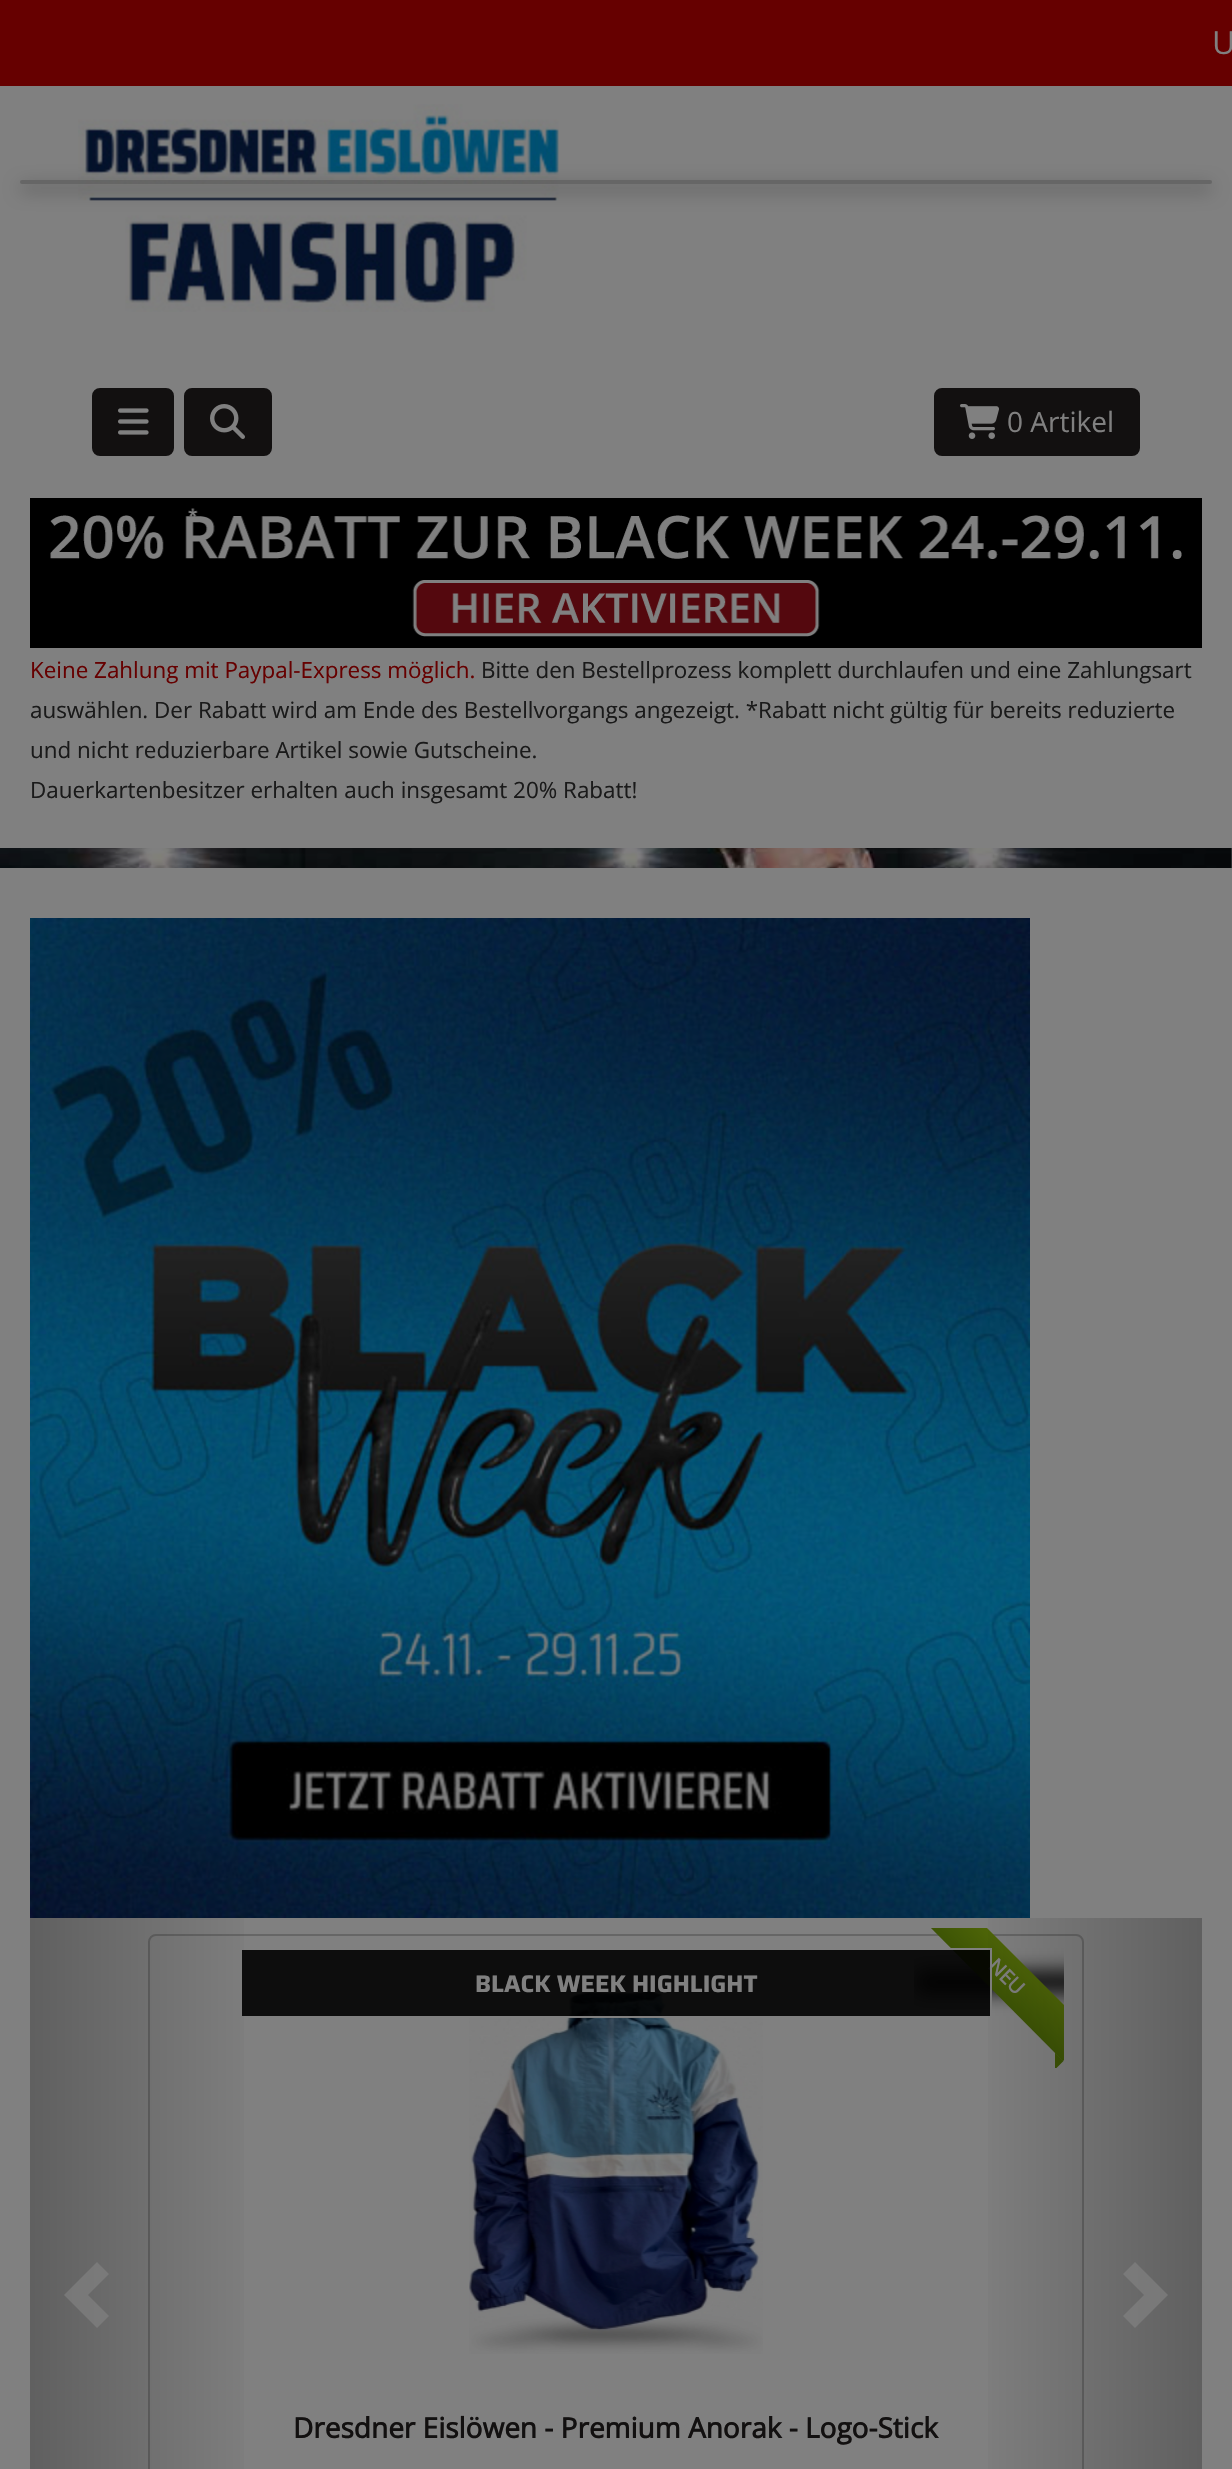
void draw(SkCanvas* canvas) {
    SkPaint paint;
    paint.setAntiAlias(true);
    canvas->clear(0xFF808080);
    canvas->drawImageRect(SkImages::DeferredFromEncodedData(SkData::MakeFromFileName("img1.png")), SkRect::MakeXYWH(0, 848, 1232, 20), SkSamplingOptions());
    paint.setColor(0xFF660000);
    canvas->drawRect(SkRect::MakeXYWH(0, 0, 1232, 86), paint);
    SkFont font1(fontMgr->matchFamilyStyle("Open Sans", SkFontStyle::Normal()), 32);
    font1.setSubpixel(true);
    paint.setColor(0xFF808080);
    canvas->drawString("U", 1212, 54, font1, paint);
    canvas->drawImageRect(SkImages::DeferredFromEncodedData(SkData::MakeFromFileName("img2.png")), SkRect::MakeXYWH(78, 104, 481, 208), SkSamplingOptions());
    paint.setColor(0xFF121010);
    canvas->drawRoundRect(SkRect::MakeXYWH(93, 389, 80, 66), 7, 7, paint);
    paint.setStyle(SkPaint::kStroke_Style);
    paint.setStrokeWidth(2);
    canvas->drawRoundRect(SkRect::MakeXYWH(93, 389, 80, 66), 7, 7, paint);
    canvas->drawImageRect(SkImages::DeferredFromEncodedData(SkData::MakeFromFileName("img3.png")), SkRect::MakeXYWH(118, 408, 31, 27), SkSamplingOptions());
    paint.setStyle(SkPaint::kFill_Style);
    canvas->drawRoundRect(SkRect::MakeXYWH(185, 389, 86, 66), 7, 7, paint);
    paint.setStyle(SkPaint::kStroke_Style);
    canvas->drawRoundRect(SkRect::MakeXYWH(185, 389, 86, 66), 7, 7, paint);
    canvas->drawImageRect(SkImages::DeferredFromEncodedData(SkData::MakeFromFileName("img4.png")), SkRect::MakeXYWH(210, 404, 35, 35), SkSamplingOptions());
    paint.setStyle(SkPaint::kFill_Style);
    canvas->drawRoundRect(SkRect::MakeXYWH(935, 389, 204, 66), 7, 7, paint);
    paint.setStyle(SkPaint::kStroke_Style);
    canvas->drawRoundRect(SkRect::MakeXYWH(935, 389, 204, 66), 7, 7, paint);
    canvas->drawImageRect(SkImages::DeferredFromEncodedData(SkData::MakeFromFileName("img5.png")), SkRect::MakeXYWH(960, 404, 39, 35), SkSamplingOptions());
    SkFont font2(fontMgr->matchFamilyStyle("Open Sans", SkFontStyle::Normal()), 28);
    font2.setSubpixel(true);
    paint.setStyle(SkPaint::kFill_Style);
    paint.setColor(0xFF808080);
    canvas->drawString("0 Artikel", 1007, 432, font2, paint);
    canvas->drawImageRect(SkImages::DeferredFromEncodedData(SkData::MakeFromFileName("img6.png")), SkRect::MakeXYWH(30, 498, 1172, 150), SkSamplingOptions());
    SkFont font3(fontMgr->matchFamilyStyle("Open Sans", SkFontStyle::Normal()), 22.4f);
    font3.setSubpixel(true);
    paint.setColor(0xFF660000);
    canvas->drawString("Keine Zahlung mit Paypal-Express möglich.", 30, 678, font3, paint);
    paint.setColor(0xFF1A1A1A);
    canvas->drawString("Bitte den Bestellprozess komplett durchlaufen und eine Zahlungsart", 481, 678, font3, paint);
    canvas->drawString("auswählen. Der Rabatt wird am Ende des Bestellvorgangs angezeigt. *Rabatt nicht gültig für bereits reduzierte", 30, 718, font3, paint);
    canvas->drawString("und nicht reduzierbare Artikel sowie Gutscheine.", 30, 758, font3, paint);
    canvas->drawString("Dauerkartenbesitzer erhalten auch insgesamt 20% Rabatt!", 30, 798, font3, paint);
    canvas->drawImageRect(SkImages::DeferredFromEncodedData(SkData::MakeFromFileName("img7.png")), SkRect::MakeXYWH(30, 918, 1000, 1000), SkSamplingOptions());
    paint.setStyle(SkPaint::kStroke_Style);
    paint.setColor(0xFF666666);
    canvas->drawRoundRect(SkRect::MakeXYWH(149, 1935, 934, 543), 7, 7, paint);
    canvas->save();
    canvas->clipRect(SkRect::MakeXYWH(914, 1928, 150, 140));
    paint.setStyle(SkPaint::kFill_Style);
    paint.setColor(0xFF000000);
    paint.setMaskFilter(SkMaskFilter::MakeBlur(kNormal_SkBlurStyle, 10));
    canvas->drawRect(SkRect::MakeXYWH(916, 1972, 180, 20), paint);
    paint.setMaskFilter(nullptr);
    canvas->restore();
    canvas->save();
    canvas->clipRect(SkRect::MakeXYWH(914, 1928, 150, 140));
    {
        const SkColor colors[] = {0xFF4E6507, 0xFF3D5405};
        const float stops[] = {0, 1};
        const SkPoint ends[] = {{1021, 1962}, {993, 1990}};
        paint.setShader(SkGradientShader::MakeLinear(ends, colors, stops, 2, SkTileMode::kClamp));
        paint.setAlpha(255);
    }
    canvas->drawPath(SkPathBuilder().moveTo(950, 1891).lineTo(1092, 2033).lineTo(1063, 2061).lineTo(922, 1919).close().detach(), paint);
    canvas->restore();
    SkFont font4(fontMgr->matchFamilyStyle("Open Sans", SkFontStyle::Bold()), 20);
    font4.setSubpixel(true);
    paint.setShader(nullptr);
    paint.setColor(0xFF808080);
    canvas->save();
    canvas->rotate(45, 987, 1967);
    canvas->drawString("NEU", 987, 1967, font4, paint);
    canvas->restore();
    canvas->drawImageRect(SkImages::DeferredFromEncodedData(SkData::MakeFromFileName("img8.png")), SkRect::MakeXYWH(469, 1990, 294, 364), SkSamplingOptions());
    paint.setColor(0xE6000000);
    canvas->drawRect(SkRect::MakeXYWH(241, 1949, 750, 68), paint);
    paint.setStyle(SkPaint::kStroke_Style);
    paint.setColor(0xFF808080);
    canvas->drawRect(SkRect::MakeXYWH(241, 1949, 750, 68), paint);
    paint.setStyle(SkPaint::kFill_Style);
    {
        const SkColor colors[] = {0x40000000, 0x00000000};
        const float stops[] = {0, 1};
        const SkPoint ends[] = {{30, 2278}, {264, 2278}};
        paint.setShader(SkGradientShader::MakeLinear(ends, colors, stops, 2, SkTileMode::kClamp));
        paint.setAlpha(255);
    }
    canvas->drawRect(SkRect::MakeXYWH(30, 1918, 214, 551), paint);
    paint.setShader(nullptr);
    paint.setColor(0xB3808080);
    canvas->drawPath(SkPathBuilder().moveTo(109, 2274).lineTo(88, 2295).lineTo(109, 2316).lineTo(97, 2328).lineTo(64, 2295).lineTo(97, 2262).close().detach(), paint);
    paint.setColor(0xFF3D5405);
    canvas->drawPath(SkPathBuilder().moveTo(1055, 2052.5f).lineTo(1063.5f, 2061).lineTo(1055, 2061).close().detach(), paint);
    canvas->save();
    canvas->clipRect(SkRect::MakeXYWH(914, 1928, 150, 140));
    canvas->drawPath(SkPathBuilder().moveTo(1063.5f, 2061).lineTo(1055, 2069.5f).lineTo(1055, 2061).close().detach(), paint);
    canvas->restore();
    SkFont font5(fontMgr->matchFamilyStyle("Open Sans", SkFontStyle::Bold()), 28);
    font5.setSubpixel(true);
    paint.setColor(0xFF121010);
    canvas->drawString("Dresdner Eislöwen - Premium Anorak - Logo-Stick", 293, 2438, font5, paint);
    SkFont font6(fontMgr->matchFamilyStyle("Saira", SkFontStyle::Bold()), 24);
    font6.setSubpixel(true);
    paint.setColor(0xFF808080);
    canvas->drawString("BLACK WEEK HIGHLIGHT", 475, 1992, font6, paint);
    {
        const SkColor colors[] = {0x00000000, 0x40000000};
        const float stops[] = {0, 1};
        const SkPoint ends[] = {{968, 2278}, {1202, 2278}};
        paint.setShader(SkGradientShader::MakeLinear(ends, colors, stops, 2, SkTileMode::kClamp));
        paint.setAlpha(255);
    }
    canvas->drawRect(SkRect::MakeXYWH(988, 1918, 214, 551), paint);
    paint.setShader(nullptr);
    paint.setColor(0xB3808080);
    canvas->drawPath(SkPathBuilder().moveTo(1168, 2295).lineTo(1135, 2328).lineTo(1123, 2316).lineTo(1144, 2295).lineTo(1123, 2274).lineTo(1135, 2262).close().detach(), paint);
    canvas->save();
    canvas->clipPath(SkPathBuilder(SkPathFillType::kEvenOdd).moveTo(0, 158).lineTo(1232, 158).lineTo(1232, 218).lineTo(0, 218).close().moveTo(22, 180).lineTo(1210, 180).cubicTo(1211, 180, 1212, 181, 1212, 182).cubicTo(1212, 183, 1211, 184, 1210, 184).lineTo(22, 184).cubicTo(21, 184, 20, 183, 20, 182).cubicTo(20, 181, 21, 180, 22, 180).close().detach(), true);
    paint.setColor(0x80000000);
    paint.setMaskFilter(SkMaskFilter::MakeBlur(kNormal_SkBlurStyle, 9));
    canvas->drawRoundRect(SkRect::MakeXYWH(20, 186, 1192, 4), 2, 2, paint);
    paint.setMaskFilter(nullptr);
    canvas->restore();
    paint.setColor(0x33000000);
    canvas->drawRoundRect(SkRect::MakeXYWH(20, 180, 1192, 4), 2, 2, paint);
}
